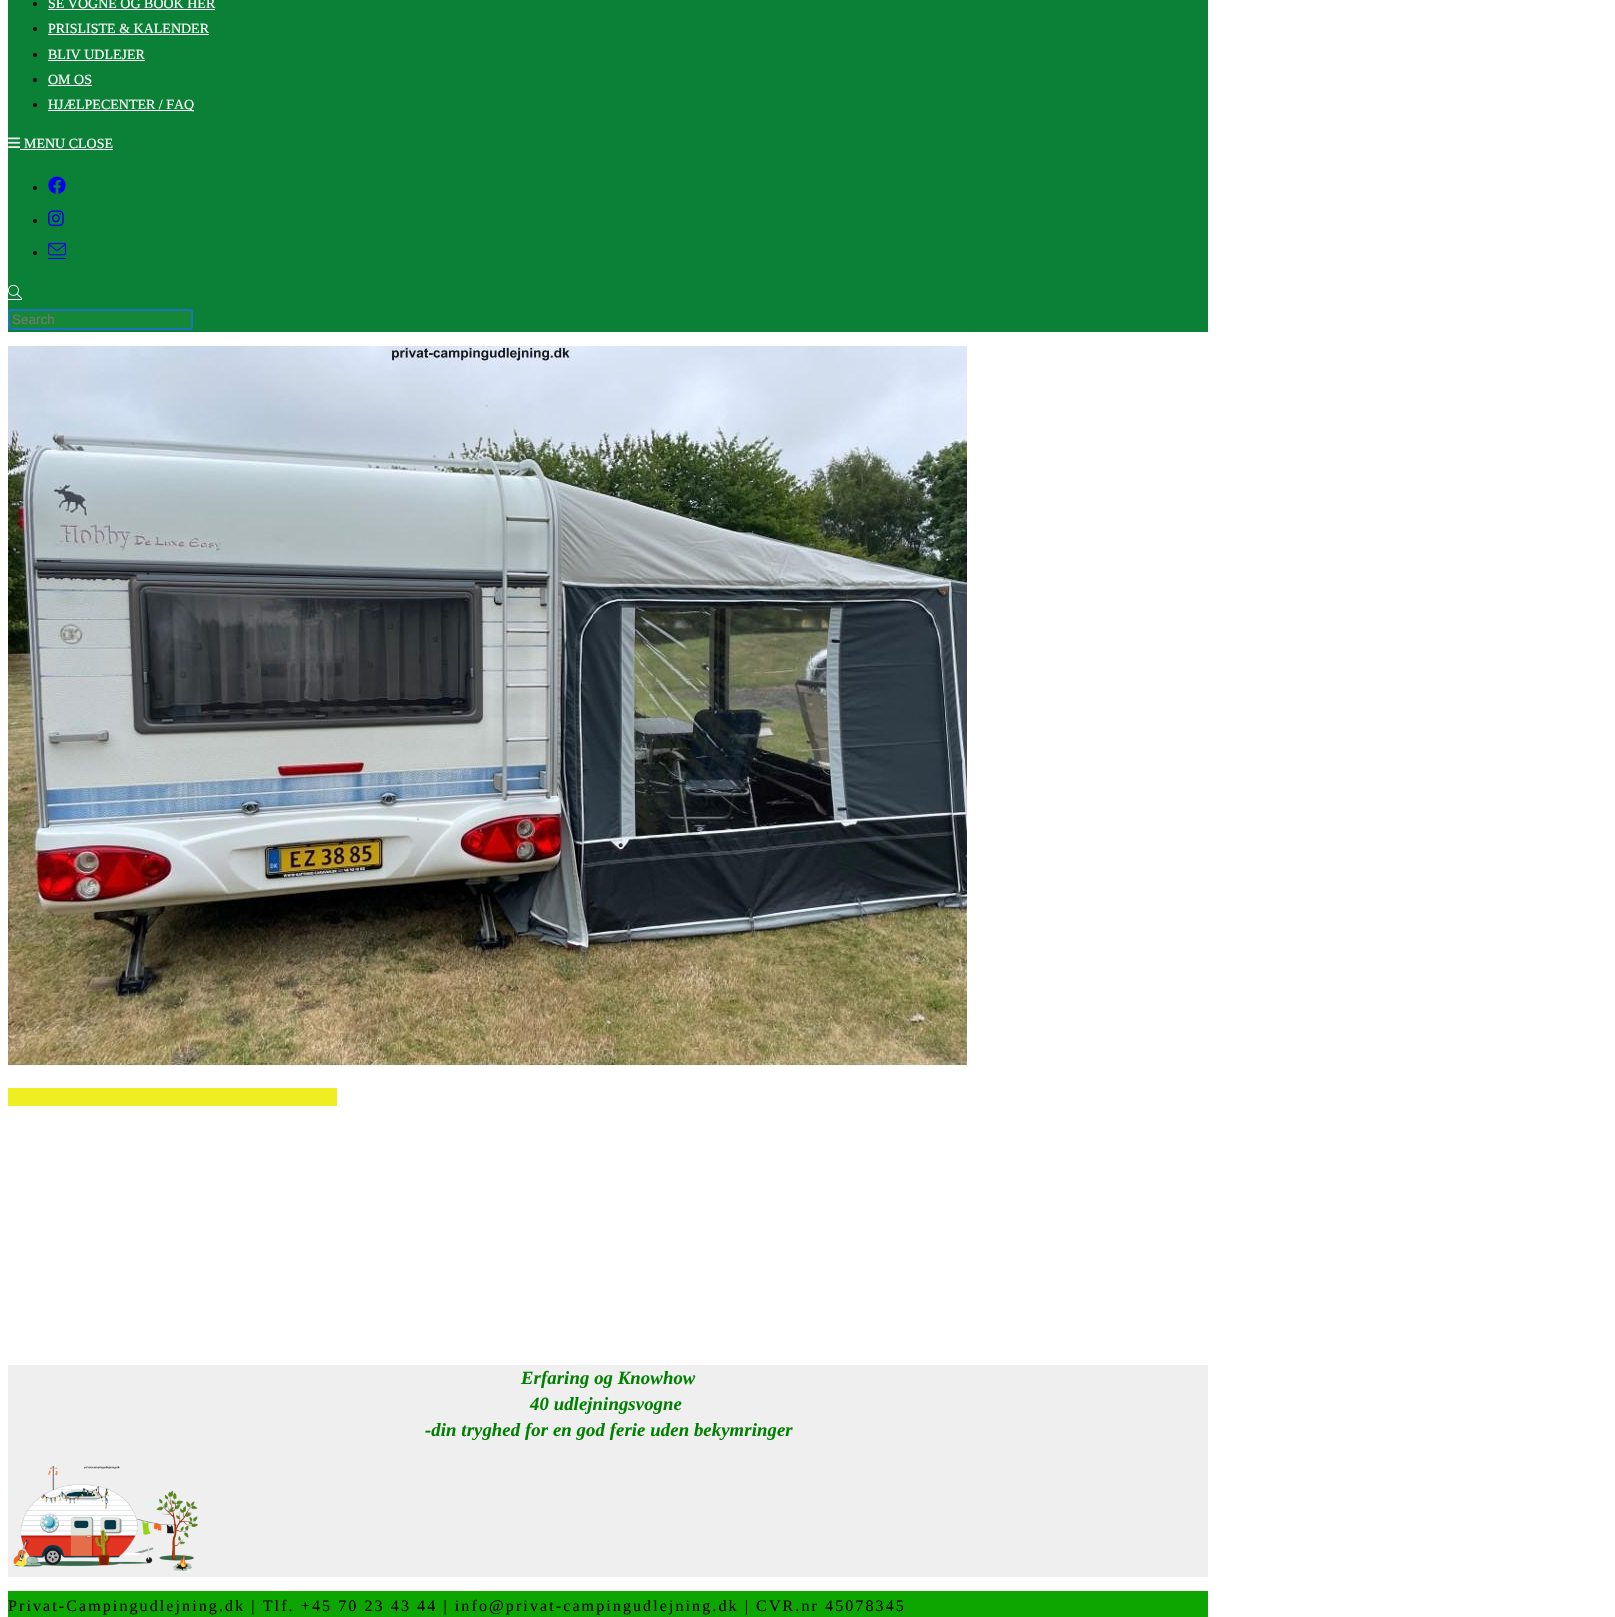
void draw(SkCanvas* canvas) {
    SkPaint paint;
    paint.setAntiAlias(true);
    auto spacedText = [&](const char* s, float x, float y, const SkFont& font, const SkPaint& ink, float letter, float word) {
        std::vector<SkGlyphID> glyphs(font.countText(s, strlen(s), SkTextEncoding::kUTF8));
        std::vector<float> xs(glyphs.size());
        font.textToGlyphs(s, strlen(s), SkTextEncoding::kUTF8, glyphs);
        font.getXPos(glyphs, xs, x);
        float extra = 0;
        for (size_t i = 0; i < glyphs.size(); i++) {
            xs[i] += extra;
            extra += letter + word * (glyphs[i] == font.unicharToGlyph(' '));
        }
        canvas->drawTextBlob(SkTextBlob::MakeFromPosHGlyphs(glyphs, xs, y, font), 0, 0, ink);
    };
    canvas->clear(0xFFFFFFFF);
    paint.setColor(0xFF0A8136);
    canvas->drawRect(SkRect::MakeXYWH(8, 0, 1200, 332), paint);
    paint.setColor(0xFF000000);
    canvas->drawCircle(35, 4, 2, paint);
    SkFont font1(fontMgr->matchFamilyStyle("Liberation Serif", SkFontStyle::Normal()), 14);
    font1.setSubpixel(true);
    paint.setColor(0xFFFFFFFF);
    canvas->drawString("SE VOGNE OG BOOK HER", 48, 8, font1, paint);
    canvas->drawRect(SkRect::MakeXYWH(48, 9, 167, 1), paint);
    paint.setColor(0xFF000000);
    canvas->drawCircle(35, 29, 2, paint);
    paint.setColor(0xFFFFFFFF);
    canvas->drawString("PRISLISTE & KALENDER", 48, 33, font1, paint);
    canvas->drawRect(SkRect::MakeXYWH(48, 34, 161, 1), paint);
    paint.setColor(0xFF000000);
    canvas->drawCircle(35, 55, 2, paint);
    paint.setColor(0xFFFFFFFF);
    canvas->drawString("BLIV UDLEJER", 48, 59, font1, paint);
    canvas->drawRect(SkRect::MakeXYWH(48, 60, 97, 1), paint);
    paint.setColor(0xFF000000);
    canvas->drawCircle(35, 80, 2, paint);
    paint.setColor(0xFFFFFFFF);
    canvas->drawString("OM OS", 48, 84, font1, paint);
    canvas->drawRect(SkRect::MakeXYWH(48, 85, 44, 1), paint);
    paint.setColor(0xFF000000);
    canvas->drawCircle(35, 105, 2, paint);
    paint.setColor(0xFFFFFFFF);
    canvas->drawRect(SkRect::MakeXYWH(48, 110, 146, 1), paint);
    canvas->drawString("HJÆLPECENTER / FAQ", 48, 109, font1, paint);
    canvas->drawImageRect(SkImages::DeferredFromEncodedData(SkData::MakeFromFileName("img1.png")), SkRect::MakeXYWH(8, 137, 13, 11), SkSamplingOptions());
    canvas->drawString("MENU CLOSE", 24, 148, font1, paint);
    canvas->drawRect(SkRect::MakeXYWH(20, 149, 93, 1), paint);
    paint.setColor(0xFF000000);
    canvas->drawCircle(35, 188, 2, paint);
    canvas->drawImageRect(SkImages::DeferredFromEncodedData(SkData::MakeFromFileName("img2.png")), SkRect::MakeXYWH(48, 176, 18, 18), SkSamplingOptions());
    canvas->drawCircle(35, 221, 2, paint);
    canvas->drawImageRect(SkImages::DeferredFromEncodedData(SkData::MakeFromFileName("img3.png")), SkRect::MakeXYWH(48, 210, 16, 17), SkSamplingOptions());
    canvas->drawCircle(35, 253, 2, paint);
    canvas->drawImageRect(SkImages::DeferredFromEncodedData(SkData::MakeFromFileName("img4.png")), SkRect::MakeXYWH(48, 242, 18, 14), SkSamplingOptions());
    paint.setColor(0xFF0000EE);
    canvas->drawRect(SkRect::MakeXYWH(48, 258, 18, 1), paint);
    canvas->drawImageRect(SkImages::DeferredFromEncodedData(SkData::MakeFromFileName("img5.png")), SkRect::MakeXYWH(8, 284, 14, 15), SkSamplingOptions());
    paint.setColor(0xFFFFFFFF);
    canvas->drawRect(SkRect::MakeXYWH(8, 299, 14, 1), paint);
    paint.setColor(0xFF148837);
    canvas->drawRoundRect(SkRect::MakeXYWH(9, 310, 183, 19), 2, 2, paint);
    paint.setStyle(SkPaint::kStroke_Style);
    paint.setStrokeWidth(2);
    paint.setColor(0xFF1E73BE);
    canvas->drawRoundRect(SkRect::MakeXYWH(9, 310, 183, 19), 2, 2, paint);
    SkFont font2(fontMgr->matchFamilyStyle("Liberation Sans", SkFontStyle::Normal()), 13.5f);
    font2.setSubpixel(true);
    paint.setStyle(SkPaint::kFill_Style);
    paint.setColor(0xFF757575);
    canvas->drawString("Search", 12, 324, font2, paint);
    canvas->drawImageRect(SkImages::DeferredFromEncodedData(SkData::MakeFromFileName("img6.png")), SkRect::MakeXYWH(8, 346, 959, 720), SkSamplingOptions());
    paint.setColor(0xFFEEEE22);
    canvas->drawRect(SkRect::MakeXYWH(8, 1088, 329, 18), paint);
    paint.setColor(0xFFEFEFEF);
    canvas->drawRect(SkRect::MakeXYWH(8, 1365, 1200, 212), paint);
    SkFont font3(fontMgr->matchFamilyStyle("Liberation Serif", SkFontStyle::BoldItalic()), 18.7f);
    font3.setSubpixel(true);
    paint.setColor(0xFF008000);
    spacedText("Erfaring og Knowhow", 521, 1384, font3, paint, 0.1f, 0);
    spacedText("40 udlejningsvogne", 530, 1410, font3, paint, 0.1f, 0);
    spacedText("-din tryghed for en god ferie uden bekymringer", 425, 1436, font3, paint, 0.1f, 0);
    canvas->drawImageRect(SkImages::DeferredFromEncodedData(SkData::MakeFromFileName("img7.png")), SkRect::MakeXYWH(9, 1466, 189, 105), SkSamplingOptions());
    paint.setColor(0xFF0DA500);
    canvas->drawRect(SkRect::MakeXYWH(8, 1591, 1200, 26), paint);
    SkFont font4(fontMgr->matchFamilyStyle("Liberation Serif", SkFontStyle::Normal()), 16);
    font4.setSubpixel(true);
    paint.setColor(0xFF000000);
    spacedText("Privat-Campingudlejning.dk | Tlf. +45 70 23 43 44 | info@privat-campingudlejning.dk | CVR.nr 45078345", 8, 1611, font4, paint, 2.1f, 0);
}
